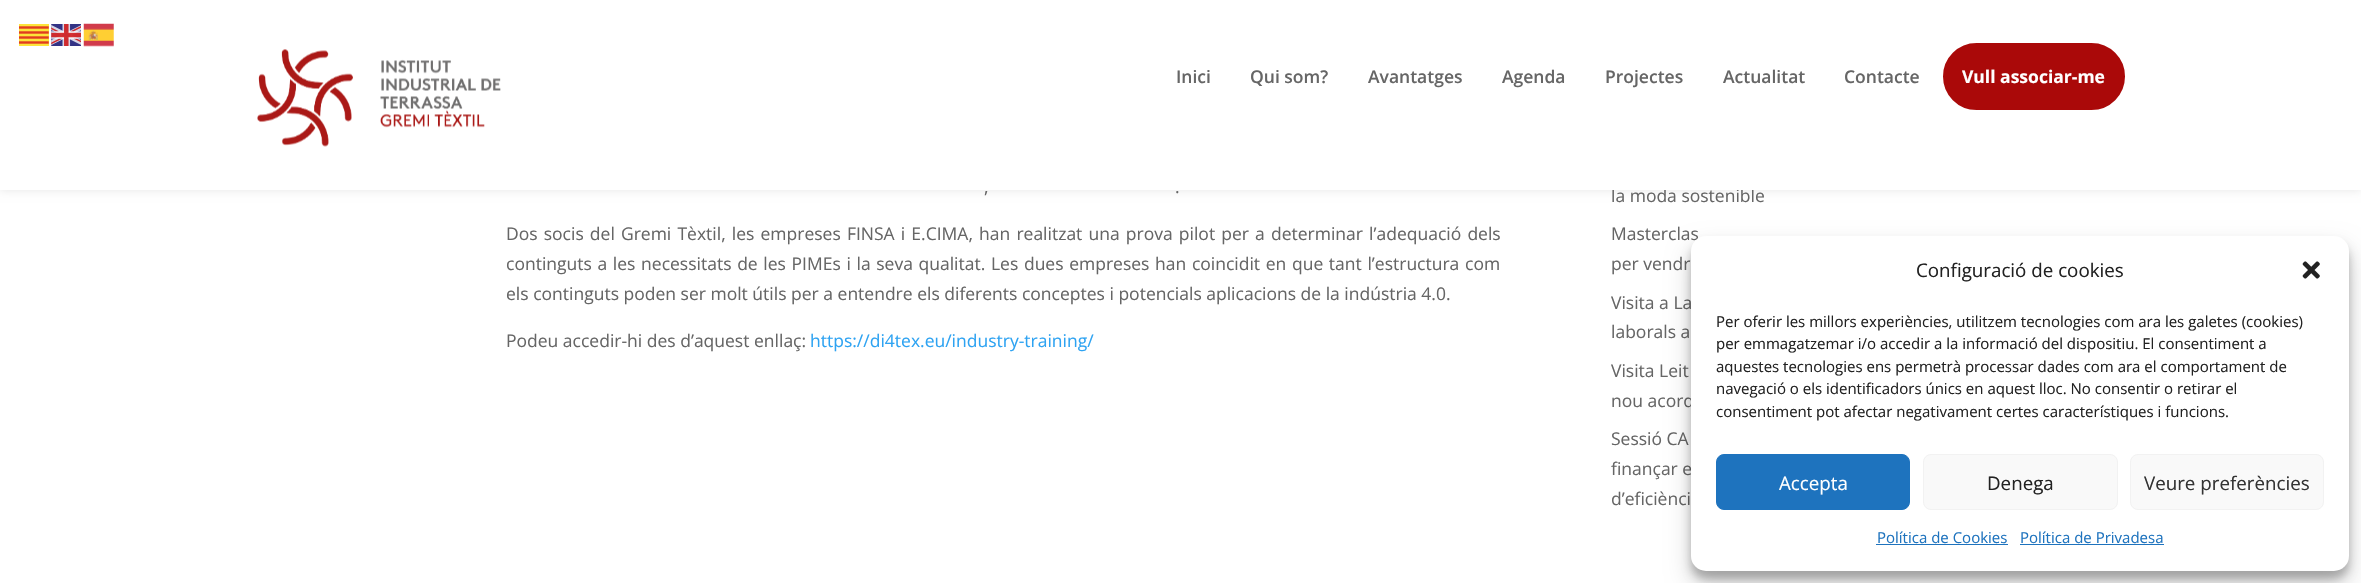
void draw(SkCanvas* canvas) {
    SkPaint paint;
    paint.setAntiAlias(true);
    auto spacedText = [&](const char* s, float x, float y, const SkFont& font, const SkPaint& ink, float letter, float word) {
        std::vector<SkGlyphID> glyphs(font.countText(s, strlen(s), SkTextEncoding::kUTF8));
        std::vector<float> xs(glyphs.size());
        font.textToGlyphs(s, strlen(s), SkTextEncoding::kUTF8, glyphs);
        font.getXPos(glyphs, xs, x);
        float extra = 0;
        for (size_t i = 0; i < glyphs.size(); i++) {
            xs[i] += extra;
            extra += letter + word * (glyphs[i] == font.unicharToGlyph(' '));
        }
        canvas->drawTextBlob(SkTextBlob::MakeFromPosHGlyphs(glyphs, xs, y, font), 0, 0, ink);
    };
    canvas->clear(0xFFFFFFFF);
    paint.setColor(0x1A000000);
    paint.setMaskFilter(SkMaskFilter::MakeBlur(kNormal_SkBlurStyle, 4.5f));
    canvas->drawRect(SkRect::MakeXYWH(0, 0, 2361, 190), paint);
    paint.setMaskFilter(nullptr);
    SkFont font1(fontMgr->matchFamilyStyle("Open Sans", SkFontStyle::Normal()), 17.5f);
    font1.setSubpixel(true);
    paint.setColor(0xFF666666);
    canvas->drawString("la moda sostenible", 1611, 202, font1, paint);
    paint.setColor(0xFFFFFFFF);
    canvas->drawRect(SkRect::MakeXYWH(0, 0, 2361, 190), paint);
    canvas->drawImageRect(SkImages::DeferredFromEncodedData(SkData::MakeFromFileName("img1.png")), SkRect::MakeXYWH(19, 24, 30, 22), SkSamplingOptions());
    canvas->drawImageRect(SkImages::DeferredFromEncodedData(SkData::MakeFromFileName("img2.png")), SkRect::MakeXYWH(51, 24, 30, 22), SkSamplingOptions());
    canvas->drawImageRect(SkImages::DeferredFromEncodedData(SkData::MakeFromFileName("img3.png")), SkRect::MakeXYWH(83, 23, 31, 24), SkSamplingOptions());
    canvas->drawImageRect(SkImages::DeferredFromEncodedData(SkData::MakeFromFileName("img4.png")), SkRect::MakeXYWH(257, 49, 244, 98), SkSamplingOptions());
    SkFont font2(fontMgr->matchFamilyStyle("Open Sans", SkFontStyle(600, SkFontStyle::kNormal_Width, SkFontStyle::kUpright_Slant)), 17.5f);
    font2.setSubpixel(true);
    paint.setColor(0xFF666666);
    canvas->drawString("Inici", 1176, 83, font2, paint);
    canvas->drawString("Qui som?", 1250, 83, font2, paint);
    canvas->drawString("Avantatges", 1368, 83, font2, paint);
    canvas->drawString("Agenda", 1502, 83, font2, paint);
    canvas->drawString("Projectes", 1605, 83, font2, paint);
    canvas->drawString("Actualitat", 1723, 83, font2, paint);
    canvas->drawString("Contacte", 1844, 83, font2, paint);
    paint.setColor(0xFFAA0909);
    canvas->drawRoundRect(SkRect::MakeXYWH(1944.5f, 44.5f, 179, 64), 32, 32, paint);
    paint.setStyle(SkPaint::kStroke_Style);
    paint.setStrokeWidth(3);
    canvas->drawRoundRect(SkRect::MakeXYWH(1944.5f, 44.5f, 179, 64), 32, 32, paint);
    SkFont font3(fontMgr->matchFamilyStyle("Open Sans", SkFontStyle::Bold()), 17.5f);
    font3.setSubpixel(true);
    paint.setStyle(SkPaint::kFill_Style);
    paint.setColor(0xFFFFFFFF);
    canvas->drawString("Vull associar-me", 1962, 83, font3, paint);
    paint.setColor(0xFF666666);
    canvas->drawString(",", 984, 193, font1, paint);
    canvas->drawString(".", 1175, 193, font1, paint);
    spacedText("Dos socis del Gremi Tèxtil, les empreses FINSA i E.CIMA, han realitzat una prova pilot per a determinar l’adequació dels", 506, 240, font1, paint, 0, 1.6f);
    spacedText("continguts a les necessitats de les PIMEs i la seva qualitat. Les dues empreses han coincidit en que tant l’estructura com", 506, 270, font1, paint, 0, 1.1f);
    canvas->drawString("els continguts poden ser molt útils per a entendre els diferents conceptes i potencials aplicacions de la indústria 4.0.", 506, 300, font1, paint);
    canvas->drawString("Podeu accedir-hi des d’aquest enllaç:", 506, 347, font1, paint);
    paint.setColor(0xFF2EA3F2);
    canvas->drawString("https://di4tex.eu/industry-training/", 810, 347, font1, paint);
    paint.setColor(0xFF666666);
    canvas->drawString("Masterclas", 1611, 240, font1, paint);
    canvas->drawString("per vendr", 1611, 270, font1, paint);
    canvas->drawString("Visita a La", 1611, 309, font1, paint);
    canvas->drawString("laborals a", 1611, 338, font1, paint);
    canvas->drawString("Visita Leit", 1611, 377, font1, paint);
    canvas->drawString("nou acord", 1611, 407, font1, paint);
    canvas->drawString("Sessió CA", 1611, 445, font1, paint);
    canvas->drawString("finançar e", 1611, 475, font1, paint);
    canvas->drawString("d’eficiènci", 1611, 505, font1, paint);
    paint.setColor(0x3B000000);
    paint.setMaskFilter(SkMaskFilter::MakeBlur(kNormal_SkBlurStyle, 4));
    canvas->drawRoundRect(SkRect::MakeXYWH(1691, 244, 658, 335), 15, 15, paint);
    paint.setMaskFilter(nullptr);
    paint.setColor(0x30000000);
    paint.setMaskFilter(SkMaskFilter::MakeBlur(kNormal_SkBlurStyle, 12.5f));
    canvas->drawRoundRect(SkRect::MakeXYWH(1691, 249, 658, 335), 15, 15, paint);
    paint.setMaskFilter(nullptr);
    paint.setColor(0xFFFFFFFF);
    canvas->drawRoundRect(SkRect::MakeXYWH(1691, 236, 658, 335), 15, 15, paint);
    SkFont font4(fontMgr->matchFamilyStyle("Open Sans", SkFontStyle::Normal()), 18.75f);
    font4.setSubpixel(true);
    paint.setColor(0xFF222222);
    canvas->drawString("Configuració de cookies", 1916, 277, font4, paint);
    canvas->drawImageRect(SkImages::DeferredFromEncodedData(SkData::MakeFromFileName("img5.png")), SkRect::MakeXYWH(2302, 261, 18, 18), SkSamplingOptions());
    SkFont font5(fontMgr->matchFamilyStyle("Open Sans", SkFontStyle::Normal()), 15);
    font5.setSubpixel(true);
    canvas->drawString("Per oferir les millors experiències, utilitzem tecnologies com ara les galetes (cookies)", 1716, 327, font5, paint);
    canvas->drawString("per emmagatzemar i/o accedir a la informació del dispositiu. El consentiment a", 1716, 349, font5, paint);
    canvas->drawString("aquestes tecnologies ens permetrà processar dades com ara el comportament de", 1716, 372, font5, paint);
    canvas->drawString("navegació o els identificadors únics en aquest lloc. No consentir o retirar el", 1716, 394, font5, paint);
    canvas->drawString("consentiment pot afectar negativament certes característiques i funcions.", 1716, 417, font5, paint);
    paint.setColor(0xFF1E73BE);
    canvas->drawRoundRect(SkRect::MakeXYWH(1716.5f, 454.5f, 193, 55), 7.5f, 7.5f, paint);
    paint.setStyle(SkPaint::kStroke_Style);
    paint.setStrokeWidth(1);
    canvas->drawRoundRect(SkRect::MakeXYWH(1716.5f, 454.5f, 193, 55), 7.5f, 7.5f, paint);
    paint.setStyle(SkPaint::kFill_Style);
    paint.setColor(0xFFFFFFFF);
    canvas->drawString("Accepta", 1779, 490, font4, paint);
    paint.setColor(0xFFF9F9F9);
    canvas->drawRoundRect(SkRect::MakeXYWH(1923.5f, 454.5f, 194, 55), 7.5f, 7.5f, paint);
    paint.setStyle(SkPaint::kStroke_Style);
    paint.setColor(0xFFF2F2F2);
    canvas->drawRoundRect(SkRect::MakeXYWH(1923.5f, 454.5f, 194, 55), 7.5f, 7.5f, paint);
    paint.setStyle(SkPaint::kFill_Style);
    paint.setColor(0xFF222222);
    canvas->drawString("Denega", 1987, 490, font4, paint);
    paint.setColor(0xFFF9F9F9);
    canvas->drawRoundRect(SkRect::MakeXYWH(2130.5f, 454.5f, 193, 55), 7.5f, 7.5f, paint);
    paint.setStyle(SkPaint::kStroke_Style);
    paint.setColor(0xFFF2F2F2);
    canvas->drawRoundRect(SkRect::MakeXYWH(2130.5f, 454.5f, 193, 55), 7.5f, 7.5f, paint);
    paint.setStyle(SkPaint::kFill_Style);
    paint.setColor(0xFF333333);
    canvas->drawString("Veure preferències", 2144, 490, font4, paint);
    paint.setColor(0xFF1E73BE);
    canvas->drawString("Política de Cookies", 1877, 543, font5, paint);
    canvas->drawRect(SkRect::MakeXYWH(1876, 544, 132, 1), paint);
    canvas->drawString("Política de Privadesa", 2020, 543, font5, paint);
    canvas->drawRect(SkRect::MakeXYWH(2020, 544, 144, 1), paint);
}
